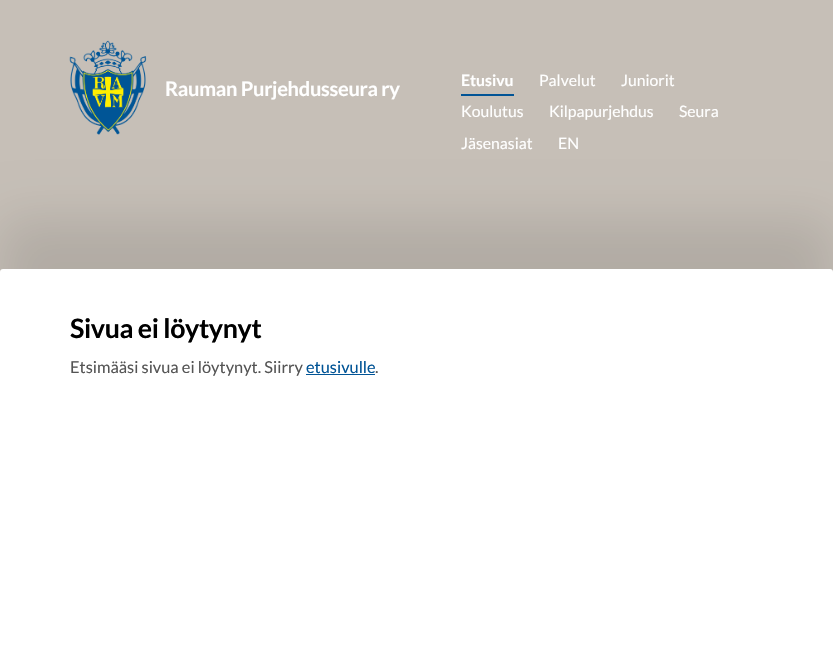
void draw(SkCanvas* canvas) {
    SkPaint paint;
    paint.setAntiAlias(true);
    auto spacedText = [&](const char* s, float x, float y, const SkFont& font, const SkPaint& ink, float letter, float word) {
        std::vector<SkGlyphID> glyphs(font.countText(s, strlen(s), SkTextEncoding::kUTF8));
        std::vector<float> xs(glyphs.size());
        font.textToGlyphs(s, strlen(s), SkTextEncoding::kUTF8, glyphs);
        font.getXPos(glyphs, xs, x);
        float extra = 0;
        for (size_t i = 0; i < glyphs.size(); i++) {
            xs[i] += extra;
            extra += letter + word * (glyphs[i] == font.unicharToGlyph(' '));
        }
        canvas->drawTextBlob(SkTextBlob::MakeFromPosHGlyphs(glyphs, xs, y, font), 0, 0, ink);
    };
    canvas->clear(0xFFC6BFB7);
    canvas->drawImageRect(SkImages::DeferredFromEncodedData(SkData::MakeFromFileName("img1.png")), SkRect::MakeXYWH(69, 40, 78, 95), SkSamplingOptions());
    SkFont font1(fontMgr->matchFamilyStyle("Lato", SkFontStyle::Bold()), 20.1f);
    font1.setSubpixel(true);
    paint.setColor(0xFFFFFFFF);
    spacedText("Rauman Purjehdusseura ry", 165, 96, font1, paint, -0.3f, 0);
    SkFont font2(fontMgr->matchFamilyStyle("Lato", SkFontStyle::Bold()), 15.75f);
    font2.setSubpixel(true);
    canvas->drawString("Etusivu", 461, 86, font2, paint);
    paint.setColor(0xFF015496);
    canvas->drawRect(SkRect::MakeXYWH(461, 94, 53, 2), paint);
    SkFont font3(fontMgr->matchFamilyStyle("Lato", SkFontStyle::Normal()), 15.75f);
    font3.setSubpixel(true);
    paint.setColor(0xFFFFFFFF);
    canvas->drawString("Palvelut", 539, 86, font3, paint);
    canvas->drawString("Juniorit", 621, 86, font3, paint);
    canvas->drawString("Koulutus", 461, 117, font3, paint);
    canvas->drawString("Kilpapurjehdus", 549, 117, font3, paint);
    canvas->drawString("Seura", 679, 117, font3, paint);
    canvas->drawString("Jäsenasiat", 461, 149, font3, paint);
    canvas->drawString("EN", 558, 149, font3, paint);
    paint.setColor(0x1A000000);
    paint.setMaskFilter(SkMaskFilter::MakeBlur(kNormal_SkBlurStyle, 25));
    canvas->drawRoundRect(SkRect::MakeXYWH(0, 219, 833, 400), 3, 3, paint);
    paint.setMaskFilter(nullptr);
    paint.setColor(0xFFFFFFFF);
    canvas->drawRoundRect(SkRect::MakeXYWH(0, 269, 833, 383), 3, 3, paint);
    SkFont font4(fontMgr->matchFamilyStyle("Lato", SkFontStyle::Bold()), 26.75f);
    font4.setSubpixel(true);
    paint.setColor(0xFF000000);
    spacedText("Sivua ei löytynyt", 70, 338, font4, paint, -0.4f, 0);
    SkFont font5(fontMgr->matchFamilyStyle("Lato", SkFontStyle::Normal()), 16.4f);
    font5.setSubpixel(true);
    paint.setColor(0xFF555555);
    canvas->drawString("Etsimääsi sivua ei löytynyt. Siirry", 70, 373, font5, paint);
    paint.setColor(0xFF015496);
    canvas->drawString("etusivulle", 306, 373, font5, paint);
    canvas->drawRect(SkRect::MakeXYWH(306, 374, 69, 1), paint);
    paint.setColor(0xFF555555);
    canvas->drawString(".", 375, 373, font5, paint);
}
